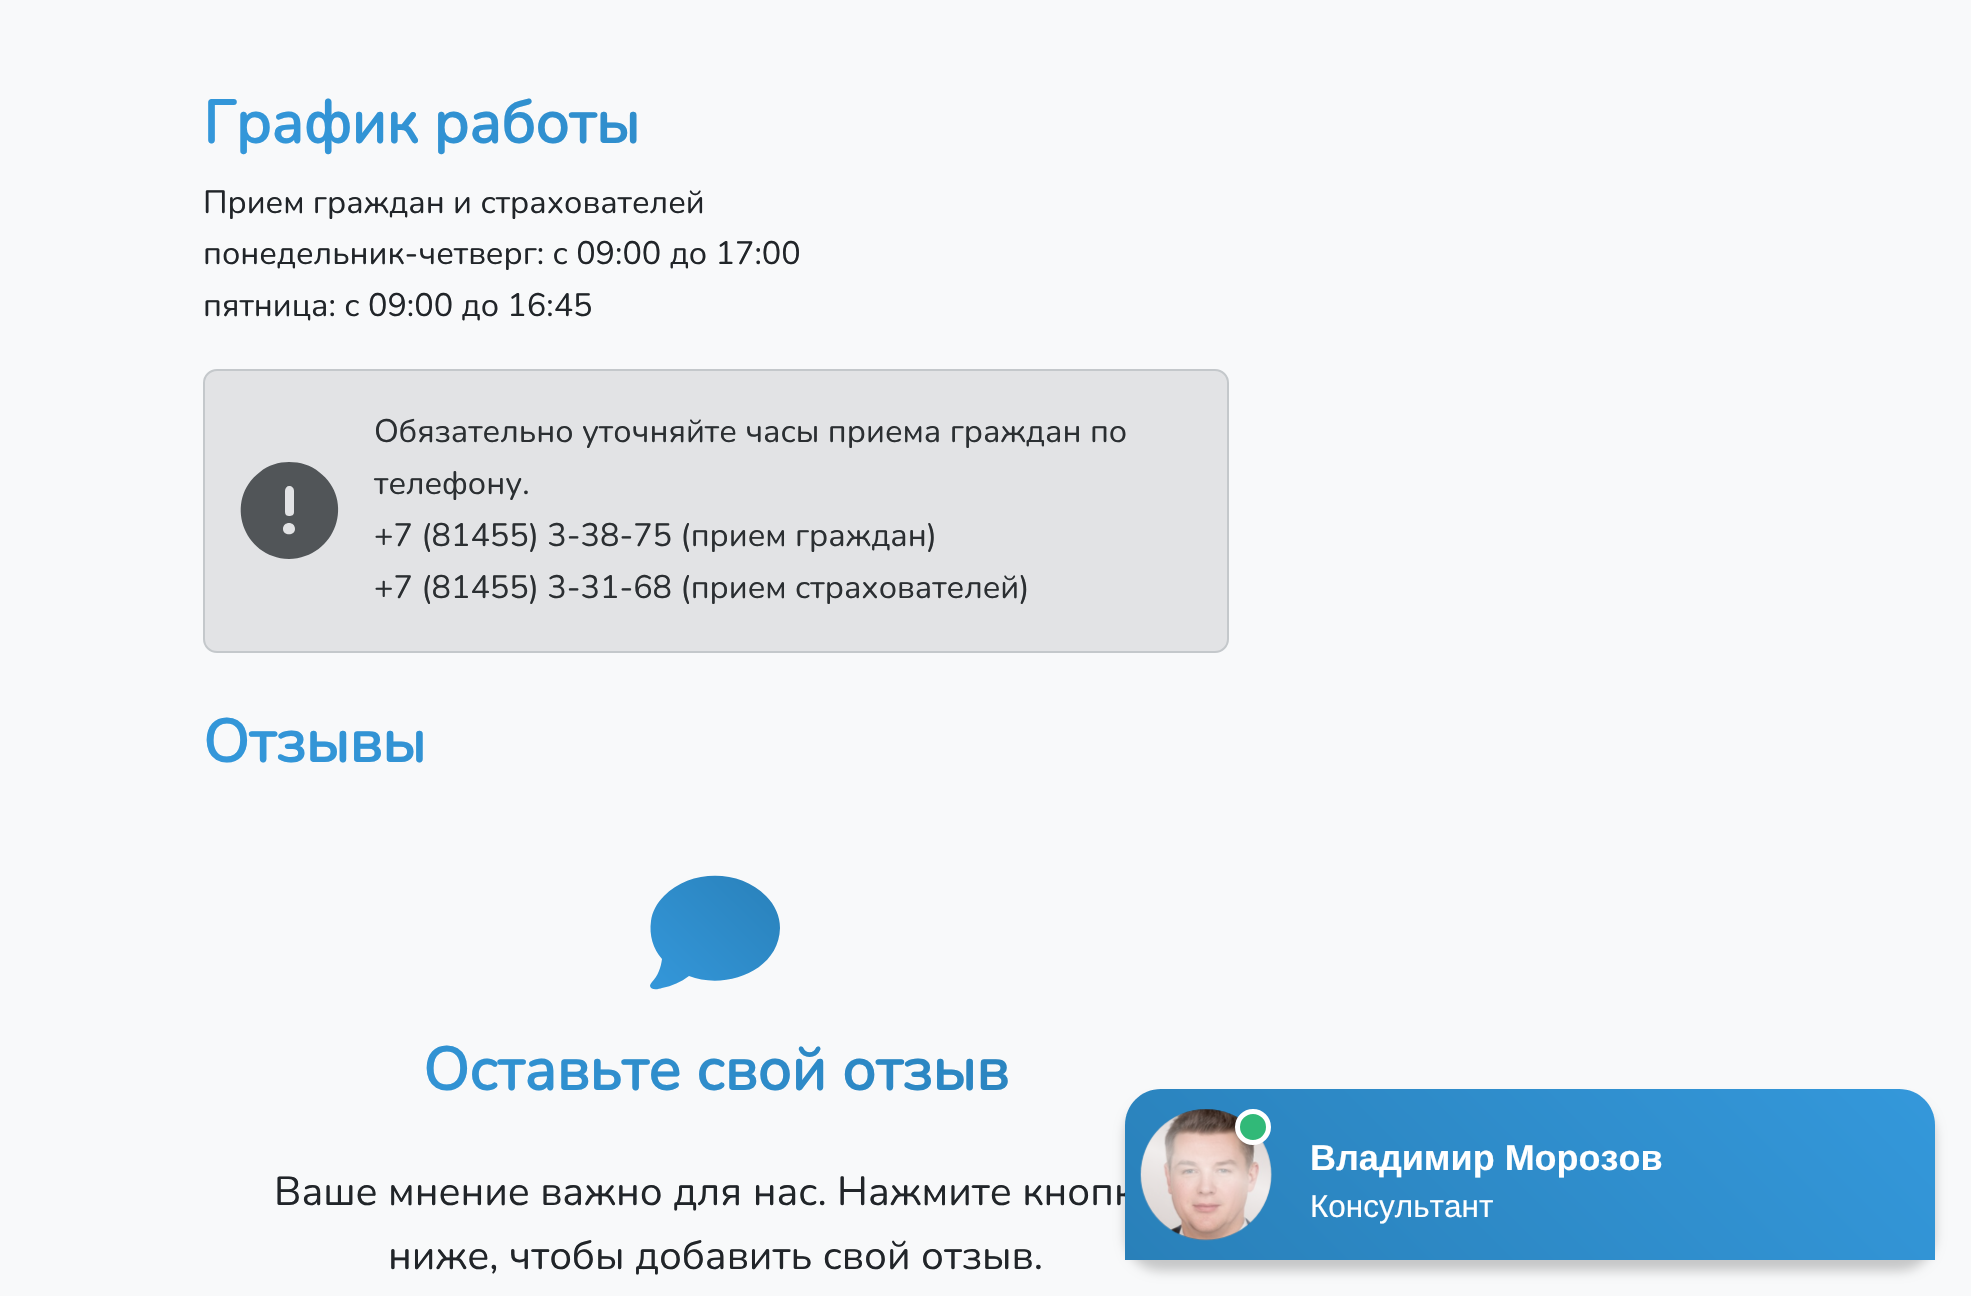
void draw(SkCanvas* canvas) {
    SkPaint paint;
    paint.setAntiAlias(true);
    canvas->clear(0xFFF8F9FA);
    SkFont font1(fontMgr->matchFamilyStyle("Nunito", SkFontStyle::Bold()), 60);
    font1.setSubpixel(true);
    {
        const SkColor colors[] = {0xFF3498DB, 0xFF2980B9};
        const float stops[] = {0, 1};
        const SkPoint ends[] = {{441, 397}, {990, -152}};
        paint.setShader(SkGradientShader::MakeLinear(ends, colors, stops, 2, SkTileMode::kClamp));
        paint.setAlpha(255);
    }
    canvas->drawString("График работы", 203, 143, font1, paint);
    SkFont font2(fontMgr->matchFamilyStyle("Nunito", SkFontStyle(200, SkFontStyle::kNormal_Width, SkFontStyle::kUpright_Slant)), 32.4f);
    font2.setSubpixel(true);
    paint.setShader(nullptr);
    paint.setColor(0xFF212529);
    canvas->drawString("Прием граждан и страхователей", 203, 213, font2, paint);
    canvas->drawString("понедельник-четверг: с 09:00 до 17:00", 203, 264, font2, paint);
    canvas->drawString("пятница: с 09:00 до 16:45", 203, 316, font2, paint);
    paint.setColor(0xFFE2E3E5);
    canvas->drawRoundRect(SkRect::MakeXYWH(204, 370, 1024, 282), 13, 13, paint);
    paint.setStyle(SkPaint::kStroke_Style);
    paint.setStrokeWidth(2);
    paint.setColor(0xFFC4C8CB);
    canvas->drawRoundRect(SkRect::MakeXYWH(204, 370, 1024, 282), 13, 13, paint);
    paint.setStyle(SkPaint::kFill_Style);
    paint.setColor(0xFF515558);
    canvas->drawPath(SkPathBuilder().moveTo(289, 559).cubicTo(336, 558, 356, 500, 319, 472).cubicTo(311, 465, 300, 462, 289, 462).cubicTo(279, 462, 268, 465, 260, 472).cubicTo(223, 500, 243, 558, 289, 559).close().moveTo(289, 486).cubicTo(292, 486, 294, 488, 294, 491).lineTo(294, 512).cubicTo(294, 515, 292, 516, 289, 516).cubicTo(287, 516, 285, 515, 285, 512).lineTo(285, 491).cubicTo(285, 488, 287, 486, 289, 486).close().moveTo(283, 529).cubicTo(283, 521, 295, 521, 295, 529).cubicTo(295, 536, 283, 536, 283, 529).close().detach(), paint);
    paint.setColor(0xFF2B2F32);
    canvas->drawString("Обязательно уточняйте часы приема граждан по", 374, 442, font2, paint);
    canvas->drawString("телефону.", 374, 494, font2, paint);
    canvas->drawString("+7 (81455) 3-38-75 (прием граждан)", 374, 546, font2, paint);
    canvas->drawString("+7 (81455) 3-31-68 (прием страхователей)", 374, 598, font2, paint);
    {
        const SkColor colors[] = {0xFF3498DB, 0xFF2980B9};
        const float stops[] = {0, 1};
        const SkPoint ends[] = {{441, 1017}, {990, 468}};
        paint.setShader(SkGradientShader::MakeLinear(ends, colors, stops, 2, SkTileMode::kClamp));
        paint.setAlpha(255);
    }
    canvas->drawString("Отзывы", 203, 762, font1, paint);
    {
        const SkColor colors[] = {0xFF3498DB, 0xFF2980B9};
        const float stops[] = {0, 1};
        const SkPoint ends[] = {{651, 998}, {780, 868}};
        paint.setShader(SkGradientShader::MakeLinear(ends, colors, stops, 2, SkTileMode::kClamp));
        paint.setAlpha(255);
    }
    canvas->drawPath(SkPathBuilder().moveTo(780, 928).cubicTo(779, 972, 724, 990, 689, 976).cubicTo(681, 982, 672, 986, 662, 988).cubicTo(659, 989, 651, 991, 650, 986).cubicTo(650, 985, 651, 983, 652, 982).cubicTo(658, 976, 661, 967, 662, 959).cubicTo(653, 949, 649, 935, 651, 921).cubicTo(652, 912, 657, 903, 664, 896).cubicTo(690, 869, 740, 869, 766, 896).cubicTo(775, 905, 780, 916, 780, 928).close().detach(), paint);
    {
        const SkColor colors[] = {0xFF3498DB, 0xFF2980B9};
        const float stops[] = {0, 1};
        const SkPoint ends[] = {{459, 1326}, {972, 813}};
        paint.setShader(SkGradientShader::MakeLinear(ends, colors, stops, 2, SkTileMode::kClamp));
        paint.setAlpha(255);
    }
    canvas->drawString("Оставьте свой отзыв", 423, 1090, font1, paint);
    SkFont font3(fontMgr->matchFamilyStyle("Nunito", SkFontStyle(200, SkFontStyle::kNormal_Width, SkFontStyle::kUpright_Slant)), 40.5f);
    font3.setSubpixel(true);
    paint.setShader(nullptr);
    paint.setColor(0xFF212529);
    canvas->drawString("Ваше мнение важно для нас. Нажмите кнопк", 274, 1205, font3, paint);
    canvas->drawString("ниже, чтобы добавить свой отзыв.", 388, 1269, font3, paint);
    paint.setColor(0x33000000);
    paint.setMaskFilter(SkMaskFilter::MakeBlur(kNormal_SkBlurStyle, 5.5f));
    canvas->drawRoundRect(SkRect::MakeXYWH(1125, 1100, 810, 171), 36, 36, paint);
    paint.setMaskFilter(nullptr);
    {
        const SkColor colors[] = {0xFF3498DB, 0xFF2980B9};
        const float stops[] = {0, 1};
        const SkPoint ends[] = {{1775, 929}, {1285, 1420}};
        paint.setShader(SkGradientShader::MakeLinear(ends, colors, stops, 2, SkTileMode::kClamp));
        paint.setAlpha(255);
    }
    canvas->drawPath(SkPathBuilder().moveTo(1161, 1089).lineTo(1899, 1089).cubicTo(1919, 1089, 1935, 1105, 1935, 1125).lineTo(1935, 1260).lineTo(1125, 1260).lineTo(1125, 1125).cubicTo(1125, 1105, 1141, 1089, 1161, 1089).close().detach(), paint);
    paint.setShader(nullptr);
    paint.setColor(0x40000000);
    canvas->drawRoundRect(SkRect::MakeXYWH(1141, 1109, 130, 131), 65, 65, paint);
    canvas->drawImageRect(SkImages::DeferredFromEncodedData(SkData::MakeFromFileName("img1.png")), SkRect::MakeXYWH(1140, 1109, 132, 132), SkSamplingOptions());
    {
        const SkColor colors[] = {0x00FFFFFF, 0x99FFFFFF, 0x5CFFFFFF, 0x00FFFFFF};
        const float stops[] = {0, 0.4f, 0.6f, 1};
        const SkPoint ends[] = {{1228, 1121}, {1184, 1244}};
        paint.setShader(SkGradientShader::MakeLinear(ends, colors, stops, 4, SkTileMode::kClamp));
        paint.setAlpha(255);
    }
    canvas->drawPath(SkPathBuilder().moveTo(1197, 1110).lineTo(1254, 1130).cubicTo(1265, 1142, 1271, 1157, 1271, 1174).lineTo(1271, 1175).cubicTo(1271, 1211, 1242, 1240, 1206, 1240).cubicTo(1170, 1240, 1141, 1211, 1141, 1175).lineTo(1141, 1174).cubicTo(1141, 1141, 1165, 1114, 1197, 1110).close().detach(), paint);
    paint.setShader(nullptr);
    paint.setColor(0xFF31B978);
    canvas->drawCircle(1253, 1127, 15.5f, paint);
    paint.setStyle(SkPaint::kStroke_Style);
    paint.setStrokeWidth(5);
    paint.setColor(0xFFFFFFFF);
    canvas->drawCircle(1253, 1127, 15.5f, paint);
    SkFont font4(fontMgr->matchFamilyStyle("Liberation Sans", SkFontStyle::Bold()), 36);
    font4.setSubpixel(true);
    paint.setStyle(SkPaint::kFill_Style);
    canvas->drawString("Владимир Морозов", 1310, 1170, font4, paint);
    SkFont font5(fontMgr->matchFamilyStyle("Liberation Sans", SkFontStyle::Normal()), 31.5f);
    font5.setSubpixel(true);
    canvas->drawString("Консультант", 1310, 1217, font5, paint);
}
